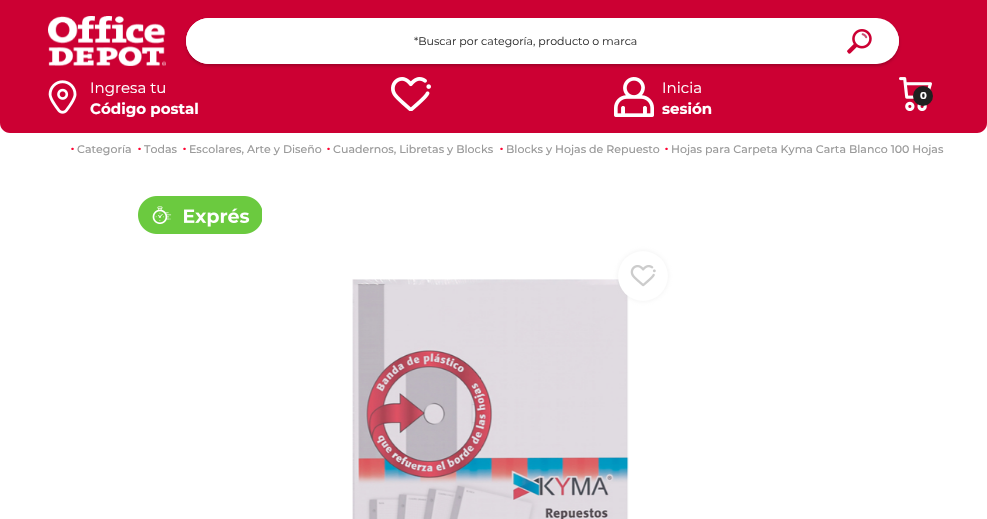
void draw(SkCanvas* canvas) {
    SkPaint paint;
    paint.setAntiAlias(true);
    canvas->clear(0xFFFFFFFF);
    paint.setColor(0xFFCC0033);
    canvas->drawPath(SkPathBuilder().moveTo(0, 0).lineTo(987, 0).lineTo(987, 123).cubicTo(987, 128.5f, 982.5f, 133, 977, 133).lineTo(10, 133).cubicTo(4.5f, 133, 0, 128.5f, 0, 123).close().detach(), paint);
    canvas->drawImageRect(SkImages::DeferredFromEncodedData(SkData::MakeFromFileName("img1.png")), SkRect::MakeXYWH(48, 16, 118, 50), SkSamplingOptions());
    paint.setColor(0xFFFFFFFF);
    canvas->drawRoundRect(SkRect::MakeXYWH(186, 18, 713, 46), 23, 23, paint);
    canvas->save();
    canvas->clipPath(SkPathBuilder(SkPathFillType::kEvenOdd).moveTo(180, 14).lineTo(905, 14).lineTo(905, 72).lineTo(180, 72).close().moveTo(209, 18).lineTo(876, 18).cubicTo(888.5f, 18, 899, 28.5f, 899, 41).cubicTo(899, 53.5f, 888.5f, 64, 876, 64).lineTo(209, 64).cubicTo(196.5f, 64, 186, 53.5f, 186, 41).cubicTo(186, 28.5f, 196.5f, 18, 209, 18).close().detach(), true);
    paint.setColor(0x36000000);
    paint.setMaskFilter(SkMaskFilter::MakeBlur(kNormal_SkBlurStyle, 1.5f));
    canvas->drawRoundRect(SkRect::MakeXYWH(186, 20, 713, 46), 23, 23, paint);
    paint.setMaskFilter(nullptr);
    canvas->restore();
    paint.setColor(0xFFFFFFFF);
    canvas->drawRoundRect(SkRect::MakeXYWH(186.5f, 18.5f, 657, 45), 22.5f, 22.5f, paint);
    paint.setStyle(SkPaint::kStroke_Style);
    paint.setStrokeWidth(1);
    canvas->drawRoundRect(SkRect::MakeXYWH(186.5f, 18.5f, 657, 45), 22.5f, 22.5f, paint);
    SkFont font1(fontMgr->matchFamilyStyle("Montserrat", SkFontStyle::Normal()), 11);
    font1.setSubpixel(true);
    paint.setStyle(SkPaint::kFill_Style);
    paint.setColor(0xFF333333);
    canvas->drawString("*Buscar por categoría, producto o marca", 414, 45, font1, paint);
    paint.setColor(0xFFFFFFFF);
    canvas->drawOval(SkRect::MakeXYWH(844, 18, 55, 46), paint);
    canvas->drawImageRect(SkImages::DeferredFromEncodedData(SkData::MakeFromFileName("img2.png")), SkRect::MakeXYWH(847, 29, 25, 25), SkSamplingOptions());
    canvas->drawImageRect(SkImages::DeferredFromEncodedData(SkData::MakeFromFileName("img3.png")), SkRect::MakeXYWH(48, 80, 29, 34), SkSamplingOptions());
    SkFont font2(fontMgr->matchFamilyStyle("Montserrat", SkFontStyle::Normal()), 15);
    font2.setSubpixel(true);
    canvas->drawString("Ingresa tu", 90, 93, font2, paint);
    SkFont font3(fontMgr->matchFamilyStyle("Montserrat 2", SkFontStyle::Bold()), 15);
    font3.setSubpixel(true);
    canvas->drawString("Código postal", 90, 114, font3, paint);
    canvas->drawImageRect(SkImages::DeferredFromEncodedData(SkData::MakeFromFileName("img4.png")), SkRect::MakeXYWH(391, 77, 40, 34), SkSamplingOptions());
    canvas->drawImageRect(SkImages::DeferredFromEncodedData(SkData::MakeFromFileName("img5.png")), SkRect::MakeXYWH(614, 77, 40, 40), SkSamplingOptions());
    canvas->drawString("Inicia", 662, 93, font2, paint);
    canvas->drawString("sesión", 662, 114, font3, paint);
    canvas->drawImageRect(SkImages::DeferredFromEncodedData(SkData::MakeFromFileName("img6.png")), SkRect::MakeXYWH(899, 77, 33, 34), SkSamplingOptions());
    paint.setColor(0xFF202020);
    canvas->drawCircle(923, 96, 10, paint);
    SkFont font4(fontMgr->matchFamilyStyle("Montserrat 2", SkFontStyle::Bold()), 10);
    font4.setSubpixel(true);
    paint.setColor(0xFFFFFFFF);
    canvas->drawString("0", 920, 99, font4, paint);
    SkFont font5(fontMgr->matchFamilyStyle("Montserrat", SkFontStyle::Bold()), 18);
    font5.setSubpixel(true);
    paint.setColor(0xFFFF0534);
    canvas->drawString("·", 70, 154, font5, paint);
    SkFont font6(fontMgr->matchFamilyStyle("Montserrat", SkFontStyle(500, SkFontStyle::kNormal_Width, SkFontStyle::kUpright_Slant)), 11);
    font6.setSubpixel(true);
    paint.setColor(0xFF9A9A9A);
    canvas->drawString("Categoría", 77, 153, font6, paint);
    paint.setColor(0xFFFF0534);
    canvas->drawString("·", 137, 154, font5, paint);
    paint.setColor(0xFF9A9A9A);
    canvas->drawString("Todas", 144, 153, font6, paint);
    paint.setColor(0xFFFF0534);
    canvas->drawString("·", 182, 154, font5, paint);
    paint.setColor(0xFF9A9A9A);
    canvas->drawString("Escolares, Arte y Diseño", 189, 153, font6, paint);
    paint.setColor(0xFFFF0534);
    canvas->drawString("·", 326, 154, font5, paint);
    paint.setColor(0xFF9A9A9A);
    canvas->drawString("Cuadernos, Libretas y Blocks", 333, 153, font6, paint);
    paint.setColor(0xFFFF0534);
    canvas->drawString("·", 499, 154, font5, paint);
    paint.setColor(0xFF9A9A9A);
    canvas->drawString("Blocks y Hojas de Repuesto", 506, 153, font6, paint);
    paint.setColor(0xFFFF0534);
    canvas->drawString("·", 664, 154, font5, paint);
    paint.setColor(0xFF9A9A9A);
    canvas->drawString("Hojas para Carpeta Kyma Carta Blanco 100 Hojas", 671, 153, font6, paint);
    canvas->drawImageRect(SkImages::DeferredFromEncodedData(SkData::MakeFromFileName("img7.png")), SkRect::MakeXYWH(138, 196, 124, 38), SkSamplingOptions());
    canvas->drawImageRect(SkImages::DeferredFromEncodedData(SkData::MakeFromFileName("img8.png")), SkRect::MakeXYWH(352, 279, 277, 240), SkSamplingOptions());
    paint.setColor(0x4DCCCCCC);
    paint.setMaskFilter(SkMaskFilter::MakeBlur(kNormal_SkBlurStyle, 2.5f));
    canvas->drawRoundRect(SkRect::MakeXYWH(618, 251, 50, 50), 25, 25, paint);
    paint.setMaskFilter(nullptr);
    paint.setColor(0xFFFFFFFF);
    canvas->drawCircle(643, 276, 25, paint);
    canvas->drawImageRect(SkImages::DeferredFromEncodedData(SkData::MakeFromFileName("img9.png")), SkRect::MakeXYWH(630, 265, 26, 22), SkSamplingOptions());
}
